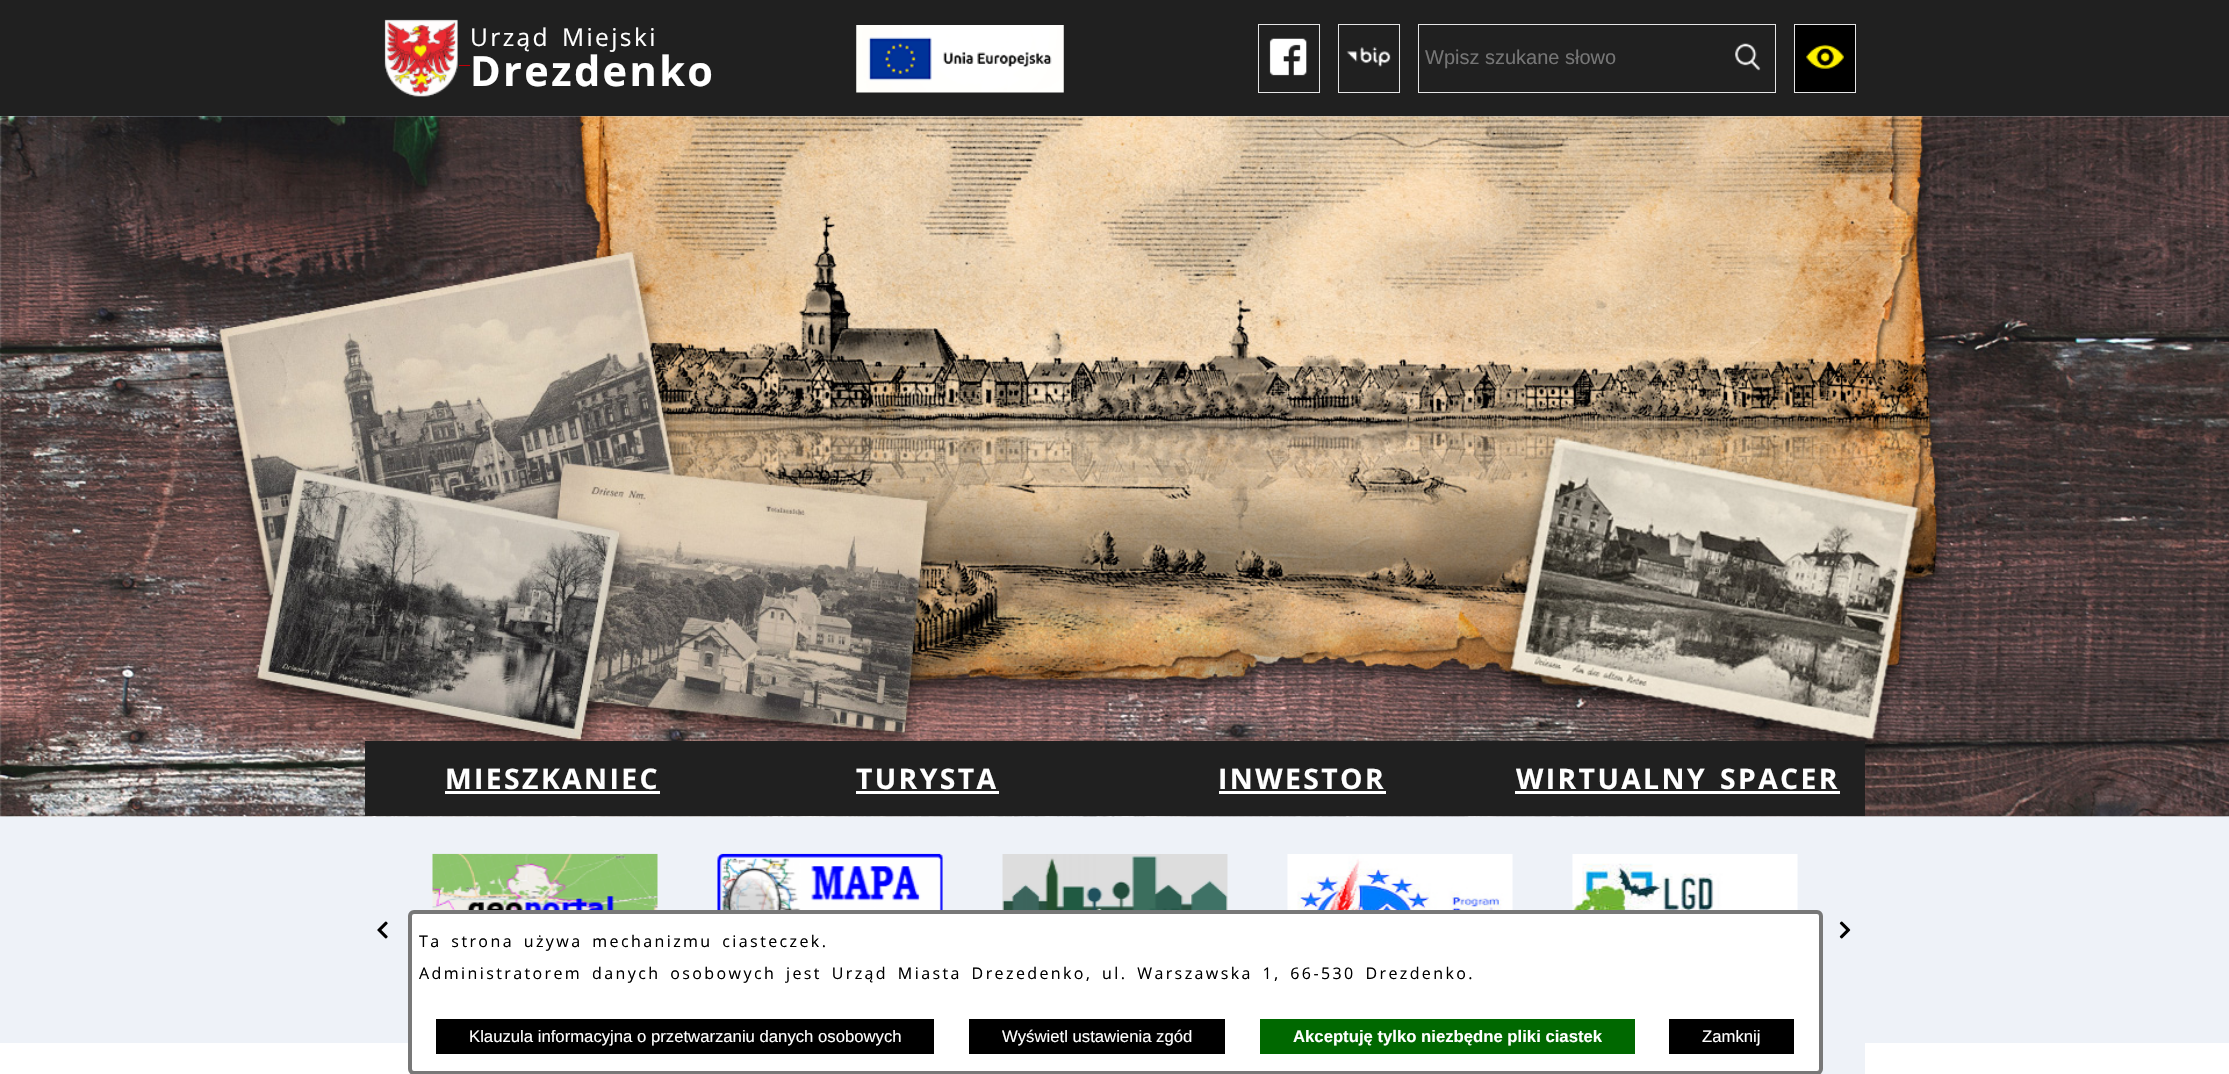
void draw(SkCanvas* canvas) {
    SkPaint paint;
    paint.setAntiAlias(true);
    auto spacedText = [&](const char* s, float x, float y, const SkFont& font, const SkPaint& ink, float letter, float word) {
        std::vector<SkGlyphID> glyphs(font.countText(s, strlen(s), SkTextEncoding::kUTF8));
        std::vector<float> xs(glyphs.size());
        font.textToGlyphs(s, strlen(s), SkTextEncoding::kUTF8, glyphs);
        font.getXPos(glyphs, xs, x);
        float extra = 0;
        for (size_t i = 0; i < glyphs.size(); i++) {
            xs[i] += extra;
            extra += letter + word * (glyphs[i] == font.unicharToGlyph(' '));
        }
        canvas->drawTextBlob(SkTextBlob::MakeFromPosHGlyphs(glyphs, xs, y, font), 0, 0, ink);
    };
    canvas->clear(0xFFFFFFFF);
    paint.setColor(0xFF202020);
    canvas->drawRect(SkRect::MakeXYWH(0, 0, 2229, 116), paint);
    canvas->drawImageRect(SkImages::DeferredFromEncodedData(SkData::MakeFromFileName("img1.png")), SkRect::MakeXYWH(384, 19, 74, 78), SkSamplingOptions());
    paint.setColor(0xFFBF0008);
    canvas->drawRect(SkRect::MakeXYWH(459, 65, 11, 1), paint);
    SkFont font1(fontMgr->matchFamilyStyle("Open Sans", SkFontStyle::Normal()), 24.5f);
    font1.setSubpixel(true);
    paint.setColor(0xFFFFFFFF);
    spacedText("Urząd Miejski", 470, 46, font1, paint, 2.4f, 3.25f);
    SkFont font2(fontMgr->matchFamilyStyle("Open Sans", SkFontStyle::Bold()), 41.5f);
    font2.setSubpixel(true);
    spacedText("Drezdenko", 470, 86, font2, paint, 2.4f, 0);
    canvas->drawImageRect(SkImages::DeferredFromEncodedData(SkData::MakeFromFileName("img2.png")), SkRect::MakeXYWH(856, 25, 208, 68), SkSamplingOptions());
    canvas->drawImageRect(SkImages::DeferredFromEncodedData(SkData::MakeFromFileName("img3.png")), SkRect::MakeXYWH(1269, 38, 38, 38), SkSamplingOptions());
    paint.setStyle(SkPaint::kStroke_Style);
    paint.setStrokeWidth(1);
    paint.setColor(0xFFE7E7E8);
    canvas->drawRect(SkRect::MakeXYWH(1258.5f, 24.5f, 61, 68), paint);
    canvas->drawImageRect(SkImages::DeferredFromEncodedData(SkData::MakeFromFileName("img4.png")), SkRect::MakeXYWH(1346, 47, 45, 20), SkSamplingOptions());
    canvas->drawRect(SkRect::MakeXYWH(1338.5f, 24.5f, 61, 68), paint);
    canvas->drawRect(SkRect::MakeXYWH(1418.5f, 24.5f, 357, 68), paint);
    SkFont font3(fontMgr->matchFamilyStyle("Liberation Sans", SkFontStyle::Normal()), 20);
    font3.setSubpixel(true);
    paint.setStyle(SkPaint::kFill_Style);
    paint.setColor(0xFF757575);
    canvas->drawString("Wpisz szukane słowo", 1425, 64, font3, paint);
    canvas->drawImageRect(SkImages::DeferredFromEncodedData(SkData::MakeFromFileName("img5.png")), SkRect::MakeXYWH(1735, 43, 26, 28), SkSamplingOptions());
    paint.setColor(0xFF000000);
    canvas->drawRect(SkRect::MakeXYWH(1795, 25, 60, 67), paint);
    canvas->drawImageRect(SkImages::DeferredFromEncodedData(SkData::MakeFromFileName("img6.png")), SkRect::MakeXYWH(1806, 44, 38, 25), SkSamplingOptions());
    paint.setStyle(SkPaint::kStroke_Style);
    paint.setColor(0xFFE7E7E8);
    canvas->drawRect(SkRect::MakeXYWH(1794.5f, 24.5f, 61, 68), paint);
    paint.setStyle(SkPaint::kFill_Style);
    paint.setColor(0xFFEEF2F8);
    canvas->drawRect(SkRect::MakeXYWH(0, 816, 2229, 227), paint);
    canvas->drawImageRect(SkImages::DeferredFromEncodedData(SkData::MakeFromFileName("img7.png")), SkRect::MakeXYWH(0, 116, 2229, 701), SkSamplingOptions());
    canvas->drawImageRect(SkImages::DeferredFromEncodedData(SkData::MakeFromFileName("img8.png")), SkRect::MakeXYWH(0, 116, 2229, 701), SkSamplingOptions());
    paint.setColor(0xFF202020);
    canvas->drawRect(SkRect::MakeXYWH(365, 741, 1500, 75), paint);
    SkFont font4(fontMgr->matchFamilyStyle("Open Sans", SkFontStyle::Bold()), 28.3f);
    font4.setSubpixel(true);
    paint.setColor(0xFFFFFFFF);
    spacedText("MIESZKANIEC", 445, 789, font4, paint, 2.4f, 0);
    canvas->drawRect(SkRect::MakeXYWH(445, 791, 215, 3), paint);
    spacedText("TURYSTA", 856, 789, font4, paint, 2.4f, 0);
    canvas->drawRect(SkRect::MakeXYWH(856, 791, 143, 3), paint);
    spacedText("INWESTOR", 1218, 789, font4, paint, 2.4f, 0);
    canvas->drawRect(SkRect::MakeXYWH(1219, 791, 167, 3), paint);
    spacedText("WIRTUALNY SPACER", 1516, 789, font4, paint, 2.4f, 3.25f);
    canvas->drawRect(SkRect::MakeXYWH(1515, 791, 325, 3), paint);
    canvas->drawImageRect(SkImages::DeferredFromEncodedData(SkData::MakeFromFileName("img9.png")), SkRect::MakeXYWH(432, 853, 226, 57), SkSamplingOptions());
    canvas->drawImageRect(SkImages::DeferredFromEncodedData(SkData::MakeFromFileName("img10.png")), SkRect::MakeXYWH(717, 853, 226, 57), SkSamplingOptions());
    canvas->drawImageRect(SkImages::DeferredFromEncodedData(SkData::MakeFromFileName("img11.png")), SkRect::MakeXYWH(1002, 854, 226, 56), SkSamplingOptions());
    canvas->drawImageRect(SkImages::DeferredFromEncodedData(SkData::MakeFromFileName("img12.png")), SkRect::MakeXYWH(1287, 854, 226, 56), SkSamplingOptions());
    canvas->drawImageRect(SkImages::DeferredFromEncodedData(SkData::MakeFromFileName("img13.png")), SkRect::MakeXYWH(1572, 854, 226, 56), SkSamplingOptions());
    canvas->drawImageRect(SkImages::DeferredFromEncodedData(SkData::MakeFromFileName("img14.png")), SkRect::MakeXYWH(377, 921, 11, 18), SkSamplingOptions());
    canvas->drawImageRect(SkImages::DeferredFromEncodedData(SkData::MakeFromFileName("img15.png")), SkRect::MakeXYWH(1839, 921, 12, 18), SkSamplingOptions());
    paint.setColor(0xFFEEF2F8);
    canvas->drawRect(SkRect::MakeXYWH(1820, 1043, 45, 31), paint);
    paint.setColor(0xFFFFFFFF);
    canvas->drawRoundRect(SkRect::MakeXYWH(410, 912, 1411, 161), 4, 4, paint);
    paint.setStyle(SkPaint::kStroke_Style);
    paint.setStrokeWidth(4);
    paint.setColor(0xFF787878);
    canvas->drawRoundRect(SkRect::MakeXYWH(410, 912, 1411, 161), 4, 4, paint);
    SkFont font5(fontMgr->matchFamilyStyle("Open Sans", SkFontStyle::Normal()), 16);
    font5.setSubpixel(true);
    paint.setStyle(SkPaint::kFill_Style);
    paint.setColor(0xFF000000);
    spacedText("Ta strona używa mechanizmu ciasteczek.", 419, 947, font5, paint, 2.4f, 3.25f);
    spacedText("Administratorem danych osobowych jest Urząd Miasta Drezedenko, ul. Warszawska 1, 66-530 Drezdenko.", 419, 979, font5, paint, 2.4f, 3.25f);
    canvas->drawRect(SkRect::MakeXYWH(436, 1019, 498, 35), paint);
    SkFont font6(fontMgr->matchFamilyStyle("Liberation Sans", SkFontStyle::Normal()), 16.7f);
    font6.setSubpixel(true);
    paint.setColor(0xFFFFFFFF);
    canvas->drawString("Klauzula informacyjna o przetwarzaniu danych osobowych", 469, 1042, font6, paint);
    paint.setColor(0xFF000000);
    canvas->drawRect(SkRect::MakeXYWH(969, 1019, 256, 35), paint);
    paint.setColor(0xFFFFFFFF);
    canvas->drawString("Wyświetl ustawienia zgód", 1002, 1042, font6, paint);
    paint.setColor(0xFF006800);
    canvas->drawRect(SkRect::MakeXYWH(1260, 1019, 375, 35), paint);
    SkFont font7(fontMgr->matchFamilyStyle("Liberation Sans", SkFontStyle::Bold()), 16.7f);
    font7.setSubpixel(true);
    paint.setColor(0xFFFFFFFF);
    canvas->drawString("Akceptuję tylko niezbędne pliki ciastek", 1293, 1042, font7, paint);
    paint.setColor(0xFF000000);
    canvas->drawRect(SkRect::MakeXYWH(1669, 1019, 125, 35), paint);
    paint.setColor(0xFFFFFFFF);
    canvas->drawString("Zamknij", 1702, 1042, font6, paint);
}
